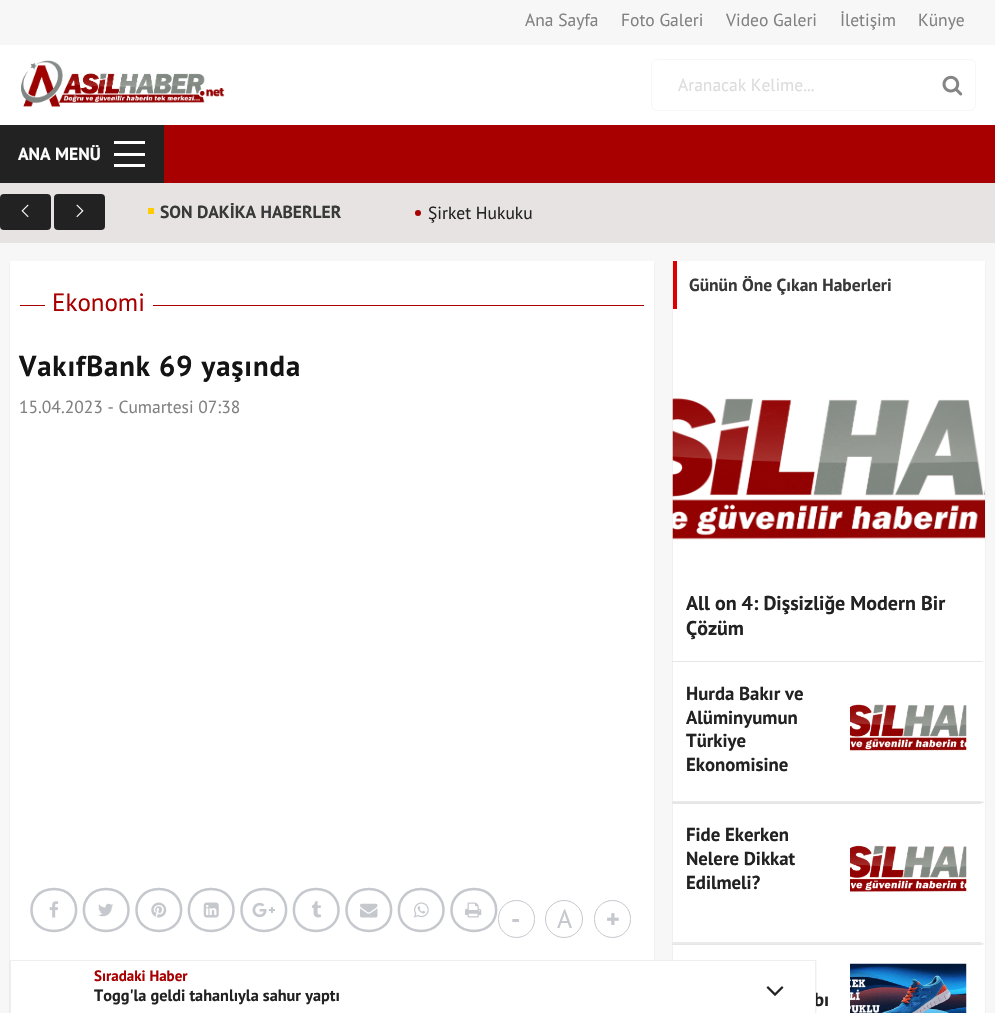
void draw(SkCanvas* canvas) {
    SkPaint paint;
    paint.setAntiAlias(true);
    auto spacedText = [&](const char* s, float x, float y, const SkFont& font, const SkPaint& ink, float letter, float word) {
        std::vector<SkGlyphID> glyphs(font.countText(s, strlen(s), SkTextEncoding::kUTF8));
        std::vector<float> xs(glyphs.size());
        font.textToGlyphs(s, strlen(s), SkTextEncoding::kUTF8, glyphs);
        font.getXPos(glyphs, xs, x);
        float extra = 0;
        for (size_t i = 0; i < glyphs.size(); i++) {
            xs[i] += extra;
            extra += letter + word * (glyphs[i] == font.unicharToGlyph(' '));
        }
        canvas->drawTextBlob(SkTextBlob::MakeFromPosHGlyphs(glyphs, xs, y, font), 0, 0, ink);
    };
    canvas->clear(0xFFF7F7F7);
    SkFont font1(fontMgr->matchFamilyStyle("PT Sans", SkFontStyle::Normal()), 17.5f);
    font1.setSubpixel(true);
    paint.setColor(0xFF818181);
    canvas->drawString("Ana Sayfa", 525, 26, font1, paint);
    canvas->drawString("Foto Galeri", 621, 26, font1, paint);
    canvas->drawString("Video Galeri", 726, 26, font1, paint);
    canvas->drawString("İletişim", 840, 26, font1, paint);
    canvas->drawString("Künye", 918, 26, font1, paint);
    paint.setColor(0xFFFFFFFF);
    canvas->drawRect(SkRect::MakeXYWH(0, 45, 995, 80), paint);
    canvas->drawImageRect(SkImages::DeferredFromEncodedData(SkData::MakeFromFileName("img1.png")), SkRect::MakeXYWH(21, 60, 204, 47), SkSamplingOptions());
    paint.setStyle(SkPaint::kStroke_Style);
    paint.setStrokeWidth(1);
    paint.setColor(0xFFF7F7F7);
    canvas->drawRoundRect(SkRect::MakeXYWH(651.5f, 59.5f, 324, 51), 5.5f, 5.5f, paint);
    paint.setStyle(SkPaint::kFill_Style);
    paint.setColor(0xFFDCDCDC);
    canvas->drawString("Aranacak Kelime...", 678, 91, font1, paint);
    canvas->drawImageRect(SkImages::DeferredFromEncodedData(SkData::MakeFromFileName("img2.png")), SkRect::MakeXYWH(942, 75, 21, 21), SkSamplingOptions());
    paint.setColor(0xFFA80000);
    canvas->drawRect(SkRect::MakeXYWH(164, 125, 831, 58), paint);
    paint.setColor(0xFF222222);
    canvas->drawRect(SkRect::MakeXYWH(0, 125, 164, 58), paint);
    paint.setColor(0xFFFFFFFF);
    canvas->drawRect(SkRect::MakeXYWH(114, 141, 31, 3), paint);
    SkFont font2(fontMgr->matchFamilyStyle("PT Sans", SkFontStyle::Bold()), 17.5f);
    font2.setSubpixel(true);
    canvas->drawString("ANA MENÜ", 18, 160, font2, paint);
    canvas->drawRect(SkRect::MakeXYWH(114, 153, 31, 3), paint);
    canvas->drawRect(SkRect::MakeXYWH(114, 164, 31, 3), paint);
    paint.setColor(0xFFE8E3E3);
    canvas->drawRect(SkRect::MakeXYWH(0, 183, 995, 60), paint);
    paint.setColor(0xFFFFCC00);
    canvas->drawRect(SkRect::MakeXYWH(148, 208, 6, 6), paint);
    paint.setColor(0xFF393939);
    canvas->drawString("SON DAKİKA HABERLER", 160, 218, font2, paint);
    paint.setColor(0xFF222222);
    canvas->drawRoundRect(SkRect::MakeXYWH(0, 194, 51, 36), 4, 4, paint);
    canvas->drawImageRect(SkImages::DeferredFromEncodedData(SkData::MakeFromFileName("img3.png")), SkRect::MakeXYWH(21, 204, 8, 14), SkSamplingOptions());
    canvas->drawRoundRect(SkRect::MakeXYWH(54, 194, 51, 36), 4, 4, paint);
    canvas->drawImageRect(SkImages::DeferredFromEncodedData(SkData::MakeFromFileName("img4.png")), SkRect::MakeXYWH(76, 204, 8, 14), SkSamplingOptions());
    paint.setColor(0xFFA80000);
    canvas->drawCircle(418, 213, 3, paint);
    paint.setColor(0xFF222222);
    canvas->drawString("Şirket Hukuku", 428, 219, font1, paint);
    paint.setColor(0xFFD3D3D3);
    paint.setMaskFilter(SkMaskFilter::MakeBlur(kNormal_SkBlurStyle, 0.5f));
    canvas->drawRect(SkRect::MakeXYWH(10, 263, 644, 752), paint);
    paint.setMaskFilter(nullptr);
    paint.setColor(0xFFFFFFFF);
    canvas->drawRect(SkRect::MakeXYWH(10, 261, 644, 699), paint);
    paint.setColor(0xFFA80000);
    canvas->drawRect(SkRect::MakeXYWH(20, 305, 624, 1), paint);
    paint.setColor(0xFFFFFFFF);
    canvas->drawRect(SkRect::MakeXYWH(45, 305, 108, 1), paint);
    SkFont font3(fontMgr->matchFamilyStyle("PT Sans", SkFontStyle::Normal()), 25);
    font3.setSubpixel(true);
    paint.setColor(0xFFA80000);
    canvas->drawString("Ekonomi", 52, 311, font3, paint);
    SkFont font4(fontMgr->matchFamilyStyle("PT Sans", SkFontStyle::Bold()), 28.75f);
    font4.setSubpixel(true);
    paint.setColor(0xFF141414);
    spacedText("VakıfBank 69 yaşında", 19, 376, font4, paint, 0.9f, 0);
    paint.setColor(0xFF818181);
    canvas->drawString("15.04.2023 - Cumartesi 07:38", 19, 413, font1, paint);
    paint.setStyle(SkPaint::kStroke_Style);
    paint.setStrokeWidth(2.5f);
    paint.setColor(0xFFC5C8CD);
    canvas->drawPath(SkPathBuilder().moveTo(54, 889).cubicTo(83.5f, 889, 83.5f, 931, 54, 931).cubicTo(24, 931, 24, 889, 54, 889).close().detach(), paint);
    canvas->drawImageRect(SkImages::DeferredFromEncodedData(SkData::MakeFromFileName("img5.png")), SkRect::MakeXYWH(49, 901, 10, 17), SkSamplingOptions());
    canvas->drawPath(SkPathBuilder().moveTo(106, 889).cubicTo(136, 889, 136, 931, 106, 931).cubicTo(76.5f, 931, 76.5f, 889, 106, 889).close().detach(), paint);
    canvas->drawImageRect(SkImages::DeferredFromEncodedData(SkData::MakeFromFileName("img6.png")), SkRect::MakeXYWH(98, 903, 15, 14), SkSamplingOptions());
    canvas->drawPath(SkPathBuilder().moveTo(159, 889).cubicTo(188.5f, 889, 188.5f, 931, 159, 931).cubicTo(129, 931, 129, 889, 159, 889).close().detach(), paint);
    canvas->drawImageRect(SkImages::DeferredFromEncodedData(SkData::MakeFromFileName("img7.png")), SkRect::MakeXYWH(151, 902, 16, 16), SkSamplingOptions());
    canvas->drawPath(SkPathBuilder().moveTo(211, 889).cubicTo(241, 889, 241, 931, 211, 931).cubicTo(181.5f, 931, 181.5f, 889, 211, 889).close().detach(), paint);
    canvas->drawImageRect(SkImages::DeferredFromEncodedData(SkData::MakeFromFileName("img8.png")), SkRect::MakeXYWH(203, 902, 16, 16), SkSamplingOptions());
    canvas->drawPath(SkPathBuilder().moveTo(264, 889).cubicTo(293.5f, 889, 293.5f, 931, 264, 931).cubicTo(234, 931, 234, 889, 264, 889).close().detach(), paint);
    canvas->drawImageRect(SkImages::DeferredFromEncodedData(SkData::MakeFromFileName("img9.png")), SkRect::MakeXYWH(252, 902, 23, 16), SkSamplingOptions());
    canvas->drawPath(SkPathBuilder().moveTo(316, 889).cubicTo(346, 889, 346, 931, 316, 931).cubicTo(286.5f, 931, 286.5f, 889, 316, 889).close().detach(), paint);
    canvas->drawImageRect(SkImages::DeferredFromEncodedData(SkData::MakeFromFileName("img10.png")), SkRect::MakeXYWH(311, 901, 11, 17), SkSamplingOptions());
    canvas->drawPath(SkPathBuilder().moveTo(369, 889).cubicTo(398.5f, 889, 398.5f, 931, 369, 931).cubicTo(339, 931, 339, 889, 369, 889).close().detach(), paint);
    canvas->drawImageRect(SkImages::DeferredFromEncodedData(SkData::MakeFromFileName("img11.png")), SkRect::MakeXYWH(360, 903, 18, 15), SkSamplingOptions());
    canvas->drawPath(SkPathBuilder().moveTo(421, 889).cubicTo(451, 889, 451, 931, 421, 931).cubicTo(391.5f, 931, 391.5f, 889, 421, 889).close().detach(), paint);
    canvas->drawImageRect(SkImages::DeferredFromEncodedData(SkData::MakeFromFileName("img12.png")), SkRect::MakeXYWH(413, 902, 16, 16), SkSamplingOptions());
    canvas->drawPath(SkPathBuilder().moveTo(474, 889).cubicTo(503.5f, 889, 503.5f, 931, 474, 931).cubicTo(444, 931, 444, 889, 474, 889).close().detach(), paint);
    canvas->drawImageRect(SkImages::DeferredFromEncodedData(SkData::MakeFromFileName("img13.png")), SkRect::MakeXYWH(465, 902, 17, 16), SkSamplingOptions());
    paint.setStrokeWidth(1);
    canvas->drawRoundRect(SkRect::MakeXYWH(498.5f, 900.5f, 36, 37), 18, 18, paint);
    SkFont font5(fontMgr->matchFamilyStyle("PT Sans", SkFontStyle::Bold()), 26);
    font5.setSubpixel(true);
    paint.setStyle(SkPaint::kFill_Style);
    canvas->drawString("-", 511, 928, font5, paint);
    paint.setStyle(SkPaint::kStroke_Style);
    canvas->drawCircle(564, 919, 18.5f, paint);
    SkFont font6(fontMgr->matchFamilyStyle("PT Sans", SkFontStyle::Normal()), 26);
    font6.setSubpixel(true);
    paint.setStyle(SkPaint::kFill_Style);
    canvas->drawString("A", 557, 928, font6, paint);
    paint.setStyle(SkPaint::kStroke_Style);
    canvas->drawRoundRect(SkRect::MakeXYWH(594.5f, 900.5f, 36, 37), 18, 18, paint);
    paint.setStyle(SkPaint::kFill_Style);
    canvas->drawString("+", 606, 928, font5, paint);
    paint.setColor(0xFFD3D3D3);
    paint.setMaskFilter(SkMaskFilter::MakeBlur(kNormal_SkBlurStyle, 0.5f));
    canvas->drawRect(SkRect::MakeXYWH(673, 263, 312, 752), paint);
    paint.setMaskFilter(nullptr);
    paint.setColor(0xFFFFFFFF);
    canvas->drawRect(SkRect::MakeXYWH(673, 261, 312, 752), paint);
    paint.setColor(0xFFD3D3D3);
    paint.setMaskFilter(SkMaskFilter::MakeBlur(kNormal_SkBlurStyle, 0.5f));
    canvas->drawRect(SkRect::MakeXYWH(10, 961, 806, 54), paint);
    paint.setMaskFilter(nullptr);
    SkFont font7(fontMgr->matchFamilyStyle("PT Sans", SkFontStyle::Bold()), 18.75f);
    font7.setSubpixel(true);
    paint.setColor(0xFF222222);
    canvas->drawString("bı", 814, 1006, font7, paint);
    paint.setColor(0xFFFFFFFF);
    canvas->drawRect(SkRect::MakeXYWH(10.5f, 960.5f, 805, 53), paint);
    paint.setStyle(SkPaint::kStroke_Style);
    paint.setColor(0xFFEFEFEF);
    canvas->drawRect(SkRect::MakeXYWH(10.5f, 960.5f, 805, 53), paint);
    SkFont font8(fontMgr->matchFamilyStyle("PT Sans", SkFontStyle::Bold()), 15);
    font8.setSubpixel(true);
    paint.setStyle(SkPaint::kFill_Style);
    paint.setColor(0xFFA80000);
    canvas->drawString("Sıradaki Haber", 94, 981, font8, paint);
    SkFont font9(fontMgr->matchFamilyStyle("PT Sans", SkFontStyle::Bold()), 16.25f);
    font9.setSubpixel(true);
    paint.setColor(0xFF222222);
    canvas->drawString("Togg'la geldi tahanlıyla sahur yaptı", 94, 1001, font9, paint);
    canvas->drawImageRect(SkImages::DeferredFromEncodedData(SkData::MakeFromFileName("img14.png")), SkRect::MakeXYWH(766, 986, 18, 10), SkSamplingOptions());
    paint.setColor(0xFFDD0000);
    canvas->drawRect(SkRect::MakeXYWH(673, 261, 4, 48), paint);
    paint.setColor(0xFF393939);
    canvas->drawString("Günün Öne Çıkan Haberleri", 689, 291, font2, paint);
    canvas->drawImageRect(SkImages::DeferredFromEncodedData(SkData::MakeFromFileName("img15.png")), SkRect::MakeXYWH(672, 398, 313, 142), SkSamplingOptions());
    SkFont font10(fontMgr->matchFamilyStyle("PT Sans", SkFontStyle::Bold()), 20);
    font10.setSubpixel(true);
    paint.setColor(0xFF222222);
    canvas->drawString("All on 4: Dişsizliğe Modern Bir", 686, 610, font10, paint);
    canvas->drawString("Çözüm", 686, 635, font10, paint);
    paint.setColor(0xFFE6E6E6);
    canvas->drawPath(SkPathBuilder().moveTo(672, 661).lineTo(985, 661).lineTo(980, 662).lineTo(672, 662).close().detach(), paint);
    paint.setColor(0xFFEAEAEA);
    canvas->drawPath(SkPathBuilder().moveTo(985, 802).lineTo(672, 802).lineTo(672, 801).lineTo(980, 801).close().detach(), paint);
    paint.setColor(0xFF222222);
    canvas->drawString("Hurda Bakır ve", 686, 700, font7, paint);
    canvas->drawString("Alüminyumun", 686, 724, font7, paint);
    canvas->drawString("Türkiye", 686, 747, font7, paint);
    canvas->drawString("Ekonomisine", 686, 771, font7, paint);
    canvas->drawImageRect(SkImages::DeferredFromEncodedData(SkData::MakeFromFileName("img16.png")), SkRect::MakeXYWH(850, 704, 117, 47), SkSamplingOptions());
    paint.setColor(0xFFE6E6E6);
    canvas->drawPath(SkPathBuilder().moveTo(672, 802).lineTo(985, 802).lineTo(980, 804).lineTo(672, 804).close().detach(), paint);
    paint.setColor(0xFFEAEAEA);
    canvas->drawPath(SkPathBuilder().moveTo(985, 944).lineTo(672, 944).lineTo(672, 942).lineTo(980, 942).close().detach(), paint);
    paint.setColor(0xFF222222);
    canvas->drawString("Fide Ekerken", 686, 841, font7, paint);
    canvas->drawString("Nelere Dikkat", 686, 865, font7, paint);
    canvas->drawString("Edilmeli?", 686, 889, font7, paint);
    canvas->drawImageRect(SkImages::DeferredFromEncodedData(SkData::MakeFromFileName("img17.png")), SkRect::MakeXYWH(850, 845, 117, 47), SkSamplingOptions());
    paint.setColor(0xFFE6E6E6);
    canvas->drawPath(SkPathBuilder().moveTo(672, 944).lineTo(985, 944).lineTo(980, 945).lineTo(672, 945).close().detach(), paint);
    canvas->drawImageRect(SkImages::DeferredFromEncodedData(SkData::MakeFromFileName("img18.png")), SkRect::MakeXYWH(850, 963, 117, 50), SkSamplingOptions());
}
